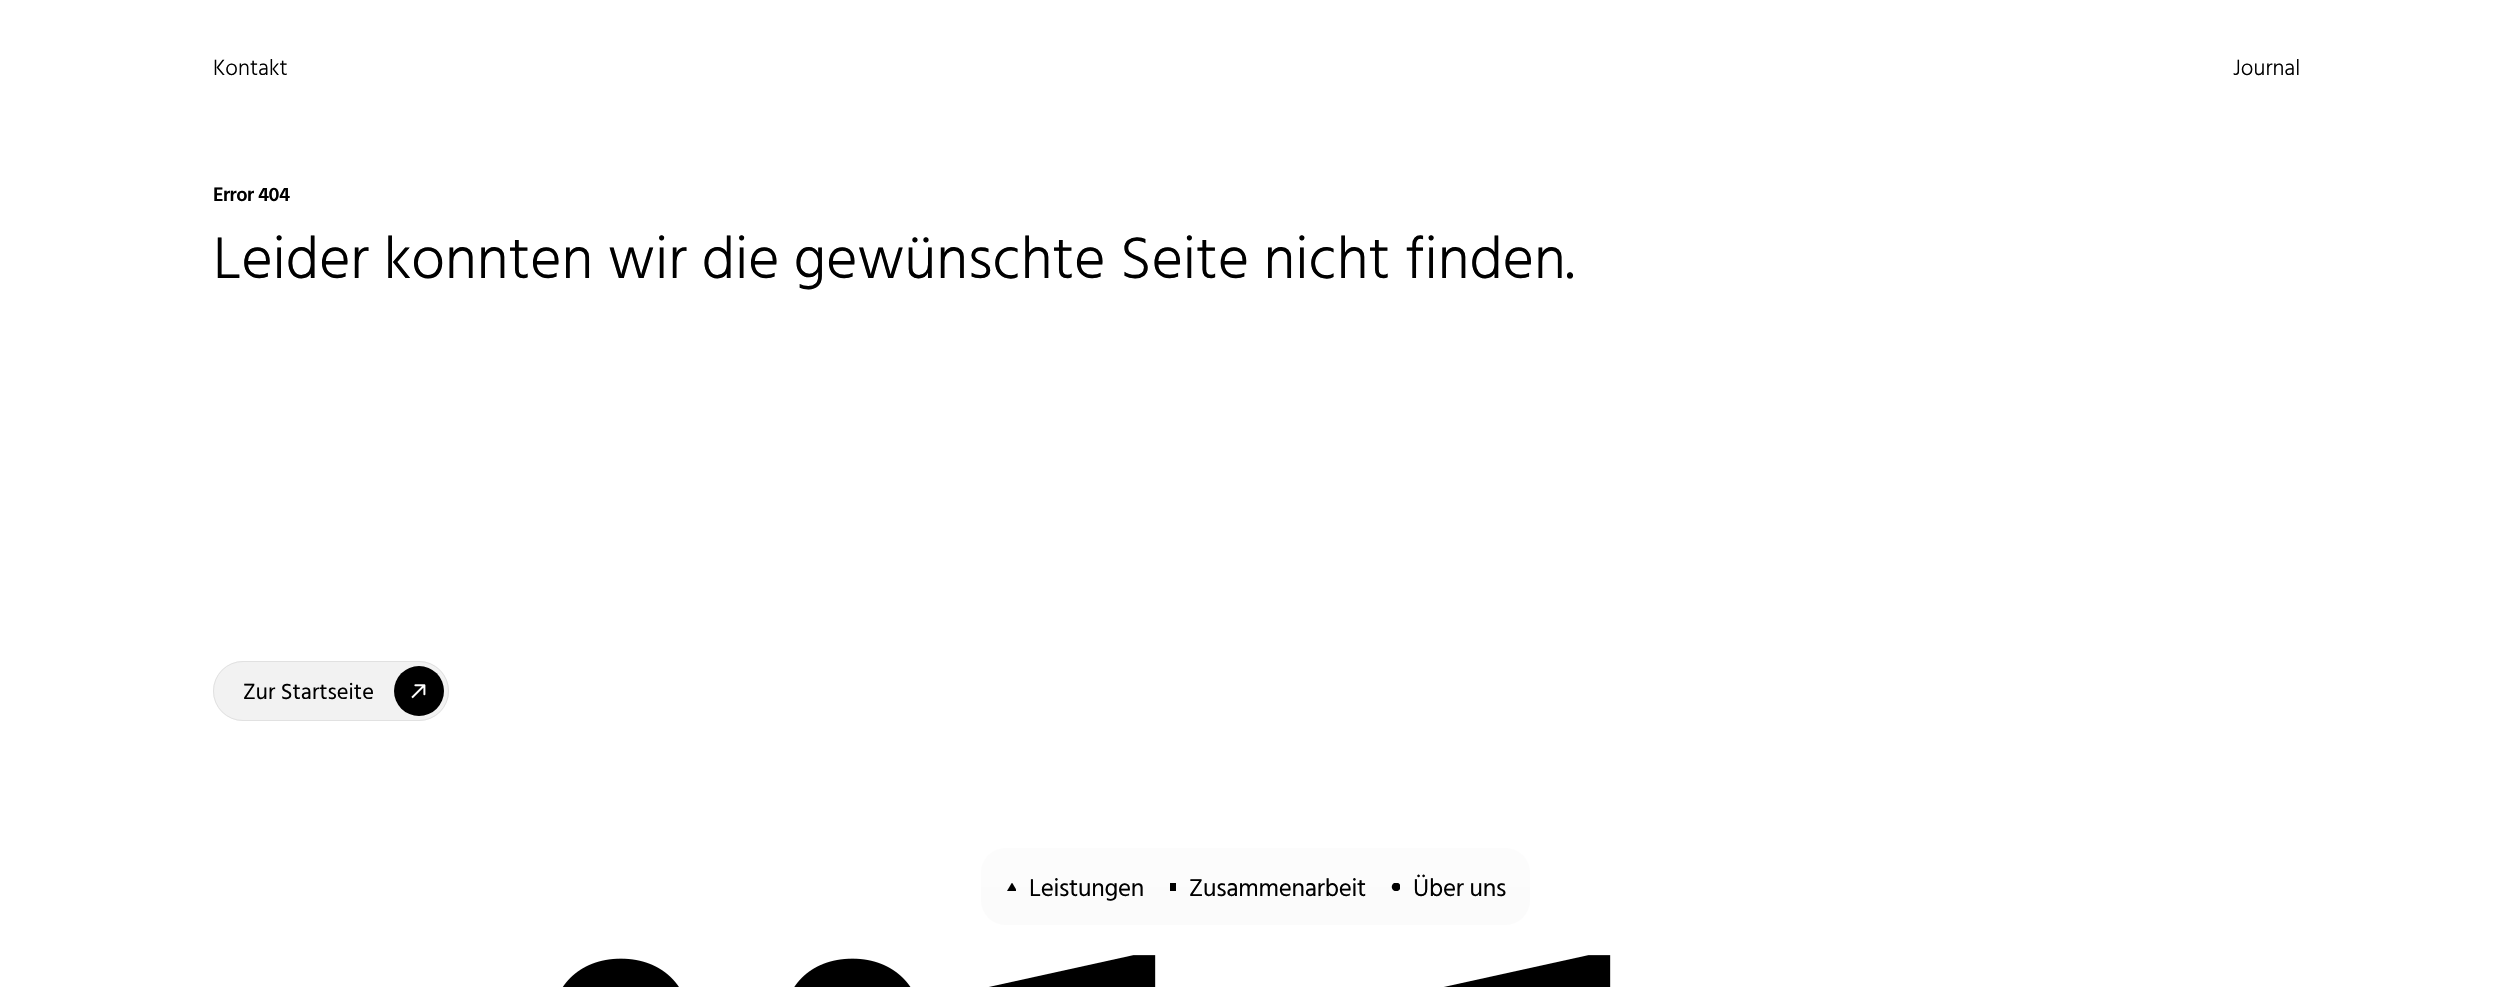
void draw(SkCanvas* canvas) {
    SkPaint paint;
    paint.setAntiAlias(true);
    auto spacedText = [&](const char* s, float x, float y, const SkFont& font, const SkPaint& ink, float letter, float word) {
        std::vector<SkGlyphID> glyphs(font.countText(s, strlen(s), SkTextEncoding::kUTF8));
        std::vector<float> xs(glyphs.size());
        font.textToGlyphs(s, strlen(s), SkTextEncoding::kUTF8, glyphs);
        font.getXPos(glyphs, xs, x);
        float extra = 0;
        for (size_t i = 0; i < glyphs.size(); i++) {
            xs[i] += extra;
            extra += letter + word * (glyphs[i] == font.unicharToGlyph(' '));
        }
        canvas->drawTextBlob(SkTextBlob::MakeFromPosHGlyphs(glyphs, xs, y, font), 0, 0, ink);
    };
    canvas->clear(0xFFFFFFFF);
    SkFont font1(fontMgr->matchFamilyStyle("Hind Vadodara", SkFontStyle(300, SkFontStyle::kNormal_Width, SkFontStyle::kUpright_Slant)), 22.5f);
    font1.setSubpixel(true);
    paint.setColor(0xFF000000);
    canvas->drawString("Kontakt", 213, 75, font1, paint);
    canvas->drawString("Journal", 2233, 75, font1, paint);
    SkFont font2(fontMgr->matchFamilyStyle("Hind Vadodara", SkFontStyle(600, SkFontStyle::kNormal_Width, SkFontStyle::kUpright_Slant)), 20);
    font2.setSubpixel(true);
    spacedText("Error 404", 213, 201, font2, paint, -0.5f, 0);
    SkFont font3(fontMgr->matchFamilyStyle("Hind Vadodara", SkFontStyle(300, SkFontStyle::kNormal_Width, SkFontStyle::kUpright_Slant)), 60);
    font3.setSubpixel(true);
    canvas->drawString("Leider konnten wir die gewünschte Seite nicht finden.", 213, 278, font3, paint);
    paint.setColor(0xFFF2F2F2);
    canvas->drawRoundRect(SkRect::MakeXYWH(213, 661, 236, 60), 30, 30, paint);
    paint.setColor(0xFF000000);
    canvas->drawCircle(419, 691, 25, paint);
    paint.setStyle(SkPaint::kStroke_Style);
    paint.setStrokeWidth(1);
    paint.setColor(0xFFE1E1E1);
    canvas->drawRoundRect(SkRect::MakeXYWH(213.5f, 661.5f, 235, 59), 29.5f, 29.5f, paint);
    SkFont font4(fontMgr->matchFamilyStyle("Hind Vadodara", SkFontStyle::Normal()), 22.5f);
    font4.setSubpixel(true);
    paint.setStyle(SkPaint::kFill_Style);
    paint.setColor(0xFF000000);
    canvas->drawString("Zur Startseite", 243, 699, font4, paint);
    canvas->drawImageRect(SkImages::DeferredFromEncodedData(SkData::MakeFromFileName("img1.png")), SkRect::MakeXYWH(411, 684, 15, 15), SkSamplingOptions());
    {
        const SkColor colors[] = {0xFFFCFCFC, 0xFFFBFBFB};
        const float stops[] = {0, 1};
        const SkPoint ends[] = {{1256, 848}, {1256, 925}};
        paint.setShader(SkGradientShader::MakeLinear(ends, colors, stops, 2, SkTileMode::kClamp));
        paint.setAlpha(255);
    }
    canvas->drawRoundRect(SkRect::MakeXYWH(981, 848, 549, 77), 25, 25, paint);
    canvas->save();
    canvas->clipRect(SkRect::MakeXYWH(1006, 883, 10, 8));
    paint.setShader(nullptr);
    paint.setColor(0xFF000000);
    canvas->drawPath(SkPathBuilder().moveTo(1012, 882.5f).lineTo(1017, 891).lineTo(1007, 891).close().detach(), paint);
    canvas->restore();
    SkFont font5(fontMgr->matchFamilyStyle("Hind Vadodara", SkFontStyle::Normal()), 25);
    font5.setSubpixel(true);
    spacedText("Leistungen", 1029, 896, font5, paint, -0.25f, 0);
    canvas->drawRect(SkRect::MakeXYWH(1170, 883, 6, 8), paint);
    spacedText("Zusammenarbeit", 1189, 896, font5, paint, -0.25f, 0);
    canvas->drawImageRect(SkImages::DeferredFromEncodedData(SkData::MakeFromFileName("img2.png")), SkRect::MakeXYWH(1391, 883, 9, 8), SkSamplingOptions());
    spacedText("Über uns", 1413, 896, font5, paint, -0.25f, 0);
    canvas->drawImageRect(SkImages::DeferredFromEncodedData(SkData::MakeFromFileName("img3.png")), SkRect::MakeXYWH(562, 955, 1049, 32), SkSamplingOptions());
}
